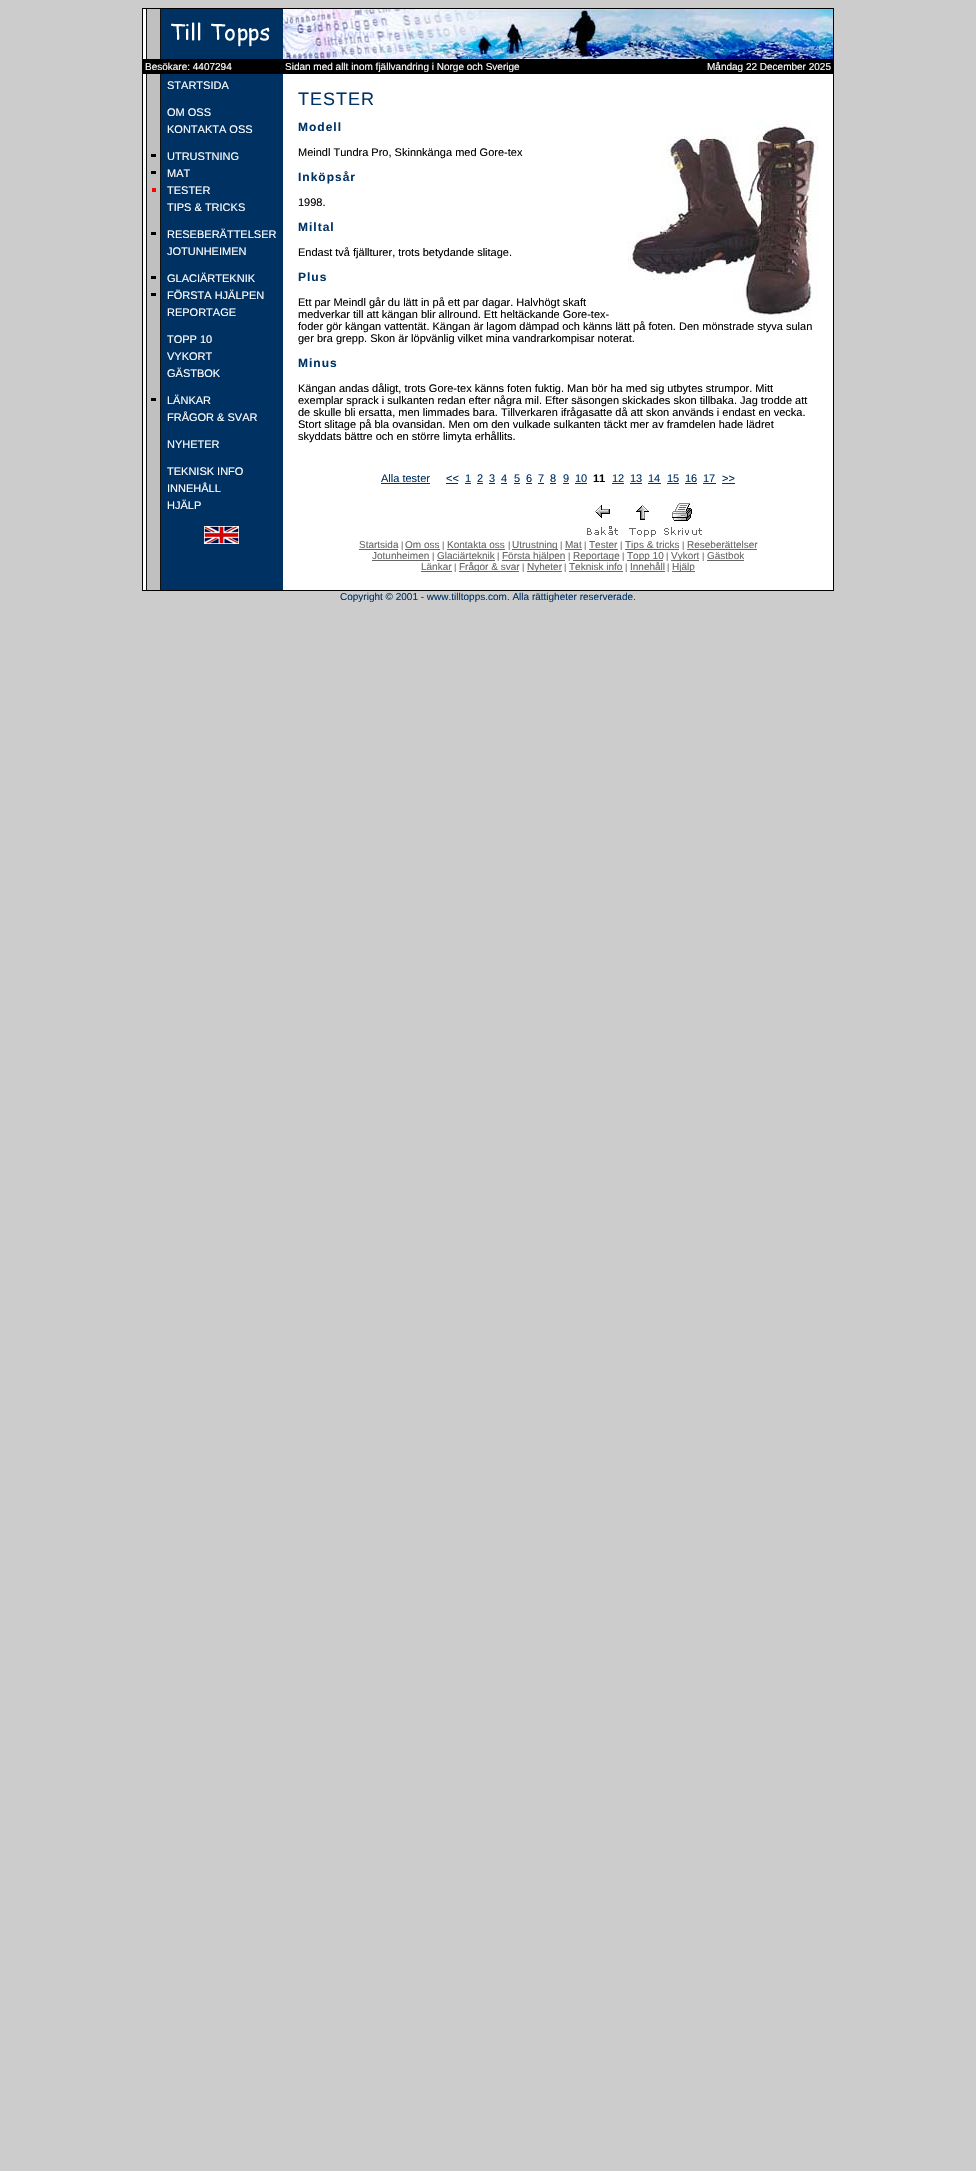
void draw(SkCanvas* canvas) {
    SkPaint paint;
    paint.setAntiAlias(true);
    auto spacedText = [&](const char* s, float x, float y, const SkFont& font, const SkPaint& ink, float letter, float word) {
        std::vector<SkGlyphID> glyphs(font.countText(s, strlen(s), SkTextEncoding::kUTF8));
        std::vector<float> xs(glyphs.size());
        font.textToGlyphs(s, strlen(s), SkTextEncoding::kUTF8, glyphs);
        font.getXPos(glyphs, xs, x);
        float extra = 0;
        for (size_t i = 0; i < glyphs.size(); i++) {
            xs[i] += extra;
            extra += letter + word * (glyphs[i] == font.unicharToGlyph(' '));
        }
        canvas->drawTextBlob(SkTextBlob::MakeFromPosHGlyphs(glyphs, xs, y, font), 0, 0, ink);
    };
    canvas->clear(0xFFCCCCCC);
    paint.setColor(0xFF000000);
    canvas->drawRect(SkRect::MakeXYWH(142, 8, 692, 583), paint);
    paint.setColor(0xFFFFFFFF);
    canvas->drawRect(SkRect::MakeXYWH(143, 9, 690, 581), paint);
    canvas->drawImageRect(SkImages::DeferredFromEncodedData(SkData::MakeFromFileName("img1.png")), SkRect::MakeXYWH(146, 9, 137, 50), SkSamplingOptions());
    canvas->drawImageRect(SkImages::DeferredFromEncodedData(SkData::MakeFromFileName("img2.png")), SkRect::MakeXYWH(283, 9, 550, 50), SkSamplingOptions());
    paint.setColor(0xFF000000);
    canvas->drawRect(SkRect::MakeXYWH(143, 59, 690, 15), paint);
    SkFont font1(fontMgr->matchFamilyStyle("Liberation Sans", SkFontStyle::Normal()), 10);
    font1.setSubpixel(true);
    paint.setColor(0xFFFFFFFF);
    canvas->drawString("Besökare: 4407294", 145, 70, font1, paint);
    canvas->drawString("Sidan med allt inom fjällvandring i Norge och Sverige", 285, 70, font1, paint);
    canvas->drawString("Måndag 22 December 2025", 707, 70, font1, paint);
    canvas->drawImageRect(SkImages::DeferredFromEncodedData(SkData::MakeFromFileName("img3.png")), SkRect::MakeXYWH(146, 74, 137, 516), SkSamplingOptions());
    SkFont font2(fontMgr->matchFamilyStyle("Liberation Sans", SkFontStyle::Normal()), 11);
    font2.setSubpixel(true);
    canvas->drawString("STARTSIDA", 167, 89, font2, paint);
    canvas->drawString("OM OSS", 167, 116, font2, paint);
    canvas->drawString("KONTAKTA OSS", 167, 133, font2, paint);
    paint.setColor(0xFF000000);
    canvas->drawRect(SkRect::MakeXYWH(151, 154, 5, 3), paint);
    paint.setColor(0xFFFFFFFF);
    canvas->drawString("UTRUSTNING", 167, 160, font2, paint);
    paint.setColor(0xFF000000);
    canvas->drawRect(SkRect::MakeXYWH(151, 171, 5, 3), paint);
    paint.setColor(0xFFFFFFFF);
    canvas->drawString("MAT", 167, 177, font2, paint);
    paint.setColor(0xFFFF0101);
    canvas->drawRect(SkRect::MakeXYWH(152, 188, 4, 4), paint);
    paint.setColor(0xFFFFFFFF);
    canvas->drawString("TESTER", 167, 194, font2, paint);
    canvas->drawString("TIPS & TRICKS", 167, 211, font2, paint);
    paint.setColor(0xFF000000);
    canvas->drawRect(SkRect::MakeXYWH(151, 232, 5, 3), paint);
    paint.setColor(0xFFFFFFFF);
    canvas->drawString("RESEBERÄTTELSER", 167, 238, font2, paint);
    canvas->drawString("JOTUNHEIMEN", 167, 255, font2, paint);
    paint.setColor(0xFF000000);
    canvas->drawRect(SkRect::MakeXYWH(151, 276, 5, 3), paint);
    paint.setColor(0xFFFFFFFF);
    canvas->drawString("GLACIÄRTEKNIK", 167, 282, font2, paint);
    paint.setColor(0xFF000000);
    canvas->drawRect(SkRect::MakeXYWH(151, 293, 5, 3), paint);
    paint.setColor(0xFFFFFFFF);
    canvas->drawString("FÖRSTA HJÄLPEN", 167, 299, font2, paint);
    canvas->drawString("REPORTAGE", 167, 316, font2, paint);
    canvas->drawString("TOPP 10", 167, 343, font2, paint);
    canvas->drawString("VYKORT", 167, 360, font2, paint);
    canvas->drawString("GÄSTBOK", 167, 377, font2, paint);
    paint.setColor(0xFF000000);
    canvas->drawRect(SkRect::MakeXYWH(151, 398, 5, 3), paint);
    paint.setColor(0xFFFFFFFF);
    canvas->drawString("LÄNKAR", 167, 404, font2, paint);
    canvas->drawString("FRÅGOR & SVAR", 167, 421, font2, paint);
    canvas->drawString("NYHETER", 167, 448, font2, paint);
    canvas->drawString("TEKNISK INFO", 167, 475, font2, paint);
    canvas->drawString("INNEHÅLL", 167, 492, font2, paint);
    canvas->drawString("HJÄLP", 167, 509, font2, paint);
    canvas->drawImageRect(SkImages::DeferredFromEncodedData(SkData::MakeFromFileName("img4.png")), SkRect::MakeXYWH(204, 526, 35, 18), SkSamplingOptions());
    SkFont font3(fontMgr->matchFamilyStyle("Liberation Sans", SkFontStyle::Normal()), 18);
    font3.setSubpixel(true);
    paint.setColor(0xFF003366);
    spacedText("TESTER", 298, 105, font3, paint, 1, 0);
    SkFont font4(fontMgr->matchFamilyStyle("Liberation Sans", SkFontStyle::Bold()), 12);
    font4.setSubpixel(true);
    spacedText("Modell", 298, 131, font4, paint, 1, 0);
    canvas->drawImageRect(SkImages::DeferredFromEncodedData(SkData::MakeFromFileName("img5.png")), SkRect::MakeXYWH(628, 120, 190, 200), SkSamplingOptions());
    paint.setColor(0xFF000000);
    canvas->drawString("Meindl Tundra Pro, Skinnkänga med Gore-tex", 298, 156, font2, paint);
    paint.setColor(0xFF003366);
    spacedText("Inköpsår", 298, 181, font4, paint, 1, 0);
    paint.setColor(0xFF000000);
    canvas->drawString("1998.", 298, 206, font2, paint);
    paint.setColor(0xFF003366);
    spacedText("Miltal", 298, 231, font4, paint, 1, 0);
    paint.setColor(0xFF000000);
    canvas->drawString("Endast två fjällturer, trots betydande slitage.", 298, 256, font2, paint);
    paint.setColor(0xFF003366);
    spacedText("Plus", 298, 281, font4, paint, 1, 0);
    paint.setColor(0xFF000000);
    canvas->drawString("Ett par Meindl går du lätt in på ett par dagar. Halvhögt skaft", 298, 306, font2, paint);
    canvas->drawString("medverkar till att kängan blir allround. Ett heltäckande Gore-tex-", 298, 318, font2, paint);
    canvas->drawString("foder gör kängan vattentät. Kängan är lagom dämpad och känns lätt på foten. Den mönstrade styva sulan", 298, 330, font2, paint);
    canvas->drawString("ger bra grepp. Skon är löpvänlig vilket mina vandrarkompisar noterat.", 298, 342, font2, paint);
    paint.setColor(0xFF003366);
    spacedText("Minus", 298, 367, font4, paint, 1, 0);
    paint.setColor(0xFF000000);
    canvas->drawString("Kängan andas dåligt, trots Gore-tex känns foten fuktig. Man bör ha med sig utbytes strumpor. Mitt", 298, 392, font2, paint);
    canvas->drawString("exemplar sprack i sulkanten redan efter några mil. Efter säsongen skickades skon tillbaka. Jag trodde att", 298, 404, font2, paint);
    canvas->drawString("de skulle bli ersatta, men limmades bara. Tillverkaren ifrågasatte då att skon används i endast en vecka.", 298, 416, font2, paint);
    canvas->drawString("Stort slitage på bla ovansidan. Men om den vulkade sulkanten täckt mer av framdelen hade lädret", 298, 428, font2, paint);
    canvas->drawString("skyddats bättre och en större limyta erhållits.", 298, 440, font2, paint);
    paint.setColor(0xFF003366);
    canvas->drawString("Alla tester", 381, 482, font2, paint);
    canvas->drawRect(SkRect::MakeXYWH(381, 483, 49, 1), paint);
    canvas->drawString("<<", 446, 482, font2, paint);
    canvas->drawRect(SkRect::MakeXYWH(446, 483, 12, 1), paint);
    canvas->drawString("1", 465, 482, font2, paint);
    canvas->drawRect(SkRect::MakeXYWH(465, 483, 6, 1), paint);
    canvas->drawString("2", 477, 482, font2, paint);
    canvas->drawRect(SkRect::MakeXYWH(477, 483, 6, 1), paint);
    canvas->drawString("3", 489, 482, font2, paint);
    canvas->drawRect(SkRect::MakeXYWH(489, 483, 6, 1), paint);
    canvas->drawString("4", 501, 482, font2, paint);
    canvas->drawRect(SkRect::MakeXYWH(501, 483, 6, 1), paint);
    canvas->drawString("5", 514, 482, font2, paint);
    canvas->drawRect(SkRect::MakeXYWH(514, 483, 6, 1), paint);
    canvas->drawString("6", 526, 482, font2, paint);
    canvas->drawRect(SkRect::MakeXYWH(526, 483, 6, 1), paint);
    canvas->drawString("7", 538, 482, font2, paint);
    canvas->drawRect(SkRect::MakeXYWH(538, 483, 6, 1), paint);
    canvas->drawString("8", 550, 482, font2, paint);
    canvas->drawRect(SkRect::MakeXYWH(550, 483, 6, 1), paint);
    canvas->drawString("9", 563, 482, font2, paint);
    canvas->drawRect(SkRect::MakeXYWH(563, 483, 6, 1), paint);
    canvas->drawString("10", 575, 482, font2, paint);
    canvas->drawRect(SkRect::MakeXYWH(575, 483, 12, 1), paint);
    SkFont font5(fontMgr->matchFamilyStyle("Liberation Sans", SkFontStyle::Bold()), 11);
    font5.setSubpixel(true);
    paint.setColor(0xFF000000);
    canvas->drawString("11", 593, 482, font5, paint);
    paint.setColor(0xFF003366);
    canvas->drawString("12", 612, 482, font2, paint);
    canvas->drawRect(SkRect::MakeXYWH(612, 483, 12, 1), paint);
    canvas->drawString("13", 630, 482, font2, paint);
    canvas->drawRect(SkRect::MakeXYWH(630, 483, 12, 1), paint);
    canvas->drawString("14", 648, 482, font2, paint);
    canvas->drawRect(SkRect::MakeXYWH(648, 483, 13, 1), paint);
    canvas->drawString("15", 667, 482, font2, paint);
    canvas->drawRect(SkRect::MakeXYWH(667, 483, 12, 1), paint);
    canvas->drawString("16", 685, 482, font2, paint);
    canvas->drawRect(SkRect::MakeXYWH(685, 483, 12, 1), paint);
    canvas->drawString("17", 703, 482, font2, paint);
    canvas->drawRect(SkRect::MakeXYWH(703, 483, 13, 1), paint);
    canvas->drawString(">>", 722, 482, font2, paint);
    canvas->drawRect(SkRect::MakeXYWH(722, 483, 13, 1), paint);
    canvas->drawImageRect(SkImages::DeferredFromEncodedData(SkData::MakeFromFileName("img6.png")), SkRect::MakeXYWH(587, 505, 31, 30), SkSamplingOptions());
    canvas->drawImageRect(SkImages::DeferredFromEncodedData(SkData::MakeFromFileName("img7.png")), SkRect::MakeXYWH(629, 505, 27, 32), SkSamplingOptions());
    canvas->drawImageRect(SkImages::DeferredFromEncodedData(SkData::MakeFromFileName("img8.png")), SkRect::MakeXYWH(664, 503, 38, 32), SkSamplingOptions());
    paint.setColor(0xFF666666);
    canvas->drawString("Startsida", 359, 548, font1, paint);
    canvas->drawRect(SkRect::MakeXYWH(359, 549, 39, 1), paint);
    SkFont font6(fontMgr->matchFamilyStyle("Liberation Sans", SkFontStyle::Normal()), 9);
    font6.setSubpixel(true);
    canvas->drawString("|", 401, 548, font6, paint);
    canvas->drawString("Om oss", 405, 548, font1, paint);
    canvas->drawRect(SkRect::MakeXYWH(405, 549, 35, 1), paint);
    canvas->drawString("|", 442, 548, font6, paint);
    canvas->drawString("Kontakta oss", 447, 548, font1, paint);
    canvas->drawRect(SkRect::MakeXYWH(447, 549, 58, 1), paint);
    canvas->drawString("|", 508, 548, font6, paint);
    canvas->drawRect(SkRect::MakeXYWH(512, 549, 46, 1), paint);
    canvas->drawString("Utrustning", 512, 548, font1, paint);
    canvas->drawString("|", 560, 548, font6, paint);
    canvas->drawString("Mat", 565, 548, font1, paint);
    canvas->drawRect(SkRect::MakeXYWH(565, 549, 17, 1), paint);
    canvas->drawString("|", 584, 548, font6, paint);
    canvas->drawString("Tester", 589, 548, font1, paint);
    canvas->drawRect(SkRect::MakeXYWH(589, 549, 29, 1), paint);
    canvas->drawString("|", 620, 548, font6, paint);
    canvas->drawRect(SkRect::MakeXYWH(625, 549, 54, 1), paint);
    canvas->drawString("Tips & tricks", 625, 548, font1, paint);
    canvas->drawString("|", 682, 548, font6, paint);
    canvas->drawString("Reseberättelser", 687, 548, font1, paint);
    canvas->drawRect(SkRect::MakeXYWH(687, 549, 70, 1), paint);
    canvas->drawString("Jotunheimen", 372, 559, font1, paint);
    canvas->drawRect(SkRect::MakeXYWH(372, 560, 58, 1), paint);
    canvas->drawString("|", 432, 559, font6, paint);
    canvas->drawString("Glaciärteknik", 437, 559, font1, paint);
    canvas->drawRect(SkRect::MakeXYWH(437, 560, 58, 1), paint);
    canvas->drawString("|", 497, 559, font6, paint);
    canvas->drawRect(SkRect::MakeXYWH(502, 560, 63, 1), paint);
    canvas->drawString("Första hjälpen", 502, 559, font1, paint);
    canvas->drawString("|", 568, 559, font6, paint);
    canvas->drawRect(SkRect::MakeXYWH(573, 560, 46, 1), paint);
    canvas->drawString("Reportage", 573, 559, font1, paint);
    canvas->drawString("|", 622, 559, font6, paint);
    canvas->drawRect(SkRect::MakeXYWH(627, 560, 36, 1), paint);
    canvas->drawString("Topp 10", 627, 559, font1, paint);
    canvas->drawString("|", 666, 559, font6, paint);
    canvas->drawRect(SkRect::MakeXYWH(671, 560, 28, 1), paint);
    canvas->drawString("Vykort", 671, 559, font1, paint);
    canvas->drawString("|", 702, 559, font6, paint);
    canvas->drawString("Gästbok", 707, 559, font1, paint);
    canvas->drawRect(SkRect::MakeXYWH(707, 560, 37, 1), paint);
    canvas->drawString("Länkar", 421, 570, font1, paint);
    canvas->drawRect(SkRect::MakeXYWH(421, 571, 31, 1), paint);
    canvas->drawString("|", 454, 570, font6, paint);
    canvas->drawRect(SkRect::MakeXYWH(459, 571, 60, 1), paint);
    canvas->drawString("Frågor & svar", 459, 570, font1, paint);
    canvas->drawString("|", 522, 570, font6, paint);
    canvas->drawRect(SkRect::MakeXYWH(527, 571, 35, 1), paint);
    canvas->drawString("Nyheter", 527, 570, font1, paint);
    canvas->drawString("|", 564, 570, font6, paint);
    canvas->drawString("Teknisk info", 569, 570, font1, paint);
    canvas->drawRect(SkRect::MakeXYWH(569, 571, 54, 1), paint);
    canvas->drawString("|", 625, 570, font6, paint);
    canvas->drawString("Innehåll", 630, 570, font1, paint);
    canvas->drawRect(SkRect::MakeXYWH(630, 571, 35, 1), paint);
    canvas->drawString("|", 667, 570, font6, paint);
    canvas->drawRect(SkRect::MakeXYWH(672, 571, 23, 1), paint);
    canvas->drawString("Hjälp", 672, 570, font1, paint);
    paint.setColor(0xFF003366);
    canvas->drawString("Copyright © 2001 - www.tilltopps.com. Alla rättigheter reserverade.", 340, 600, font1, paint);
}
